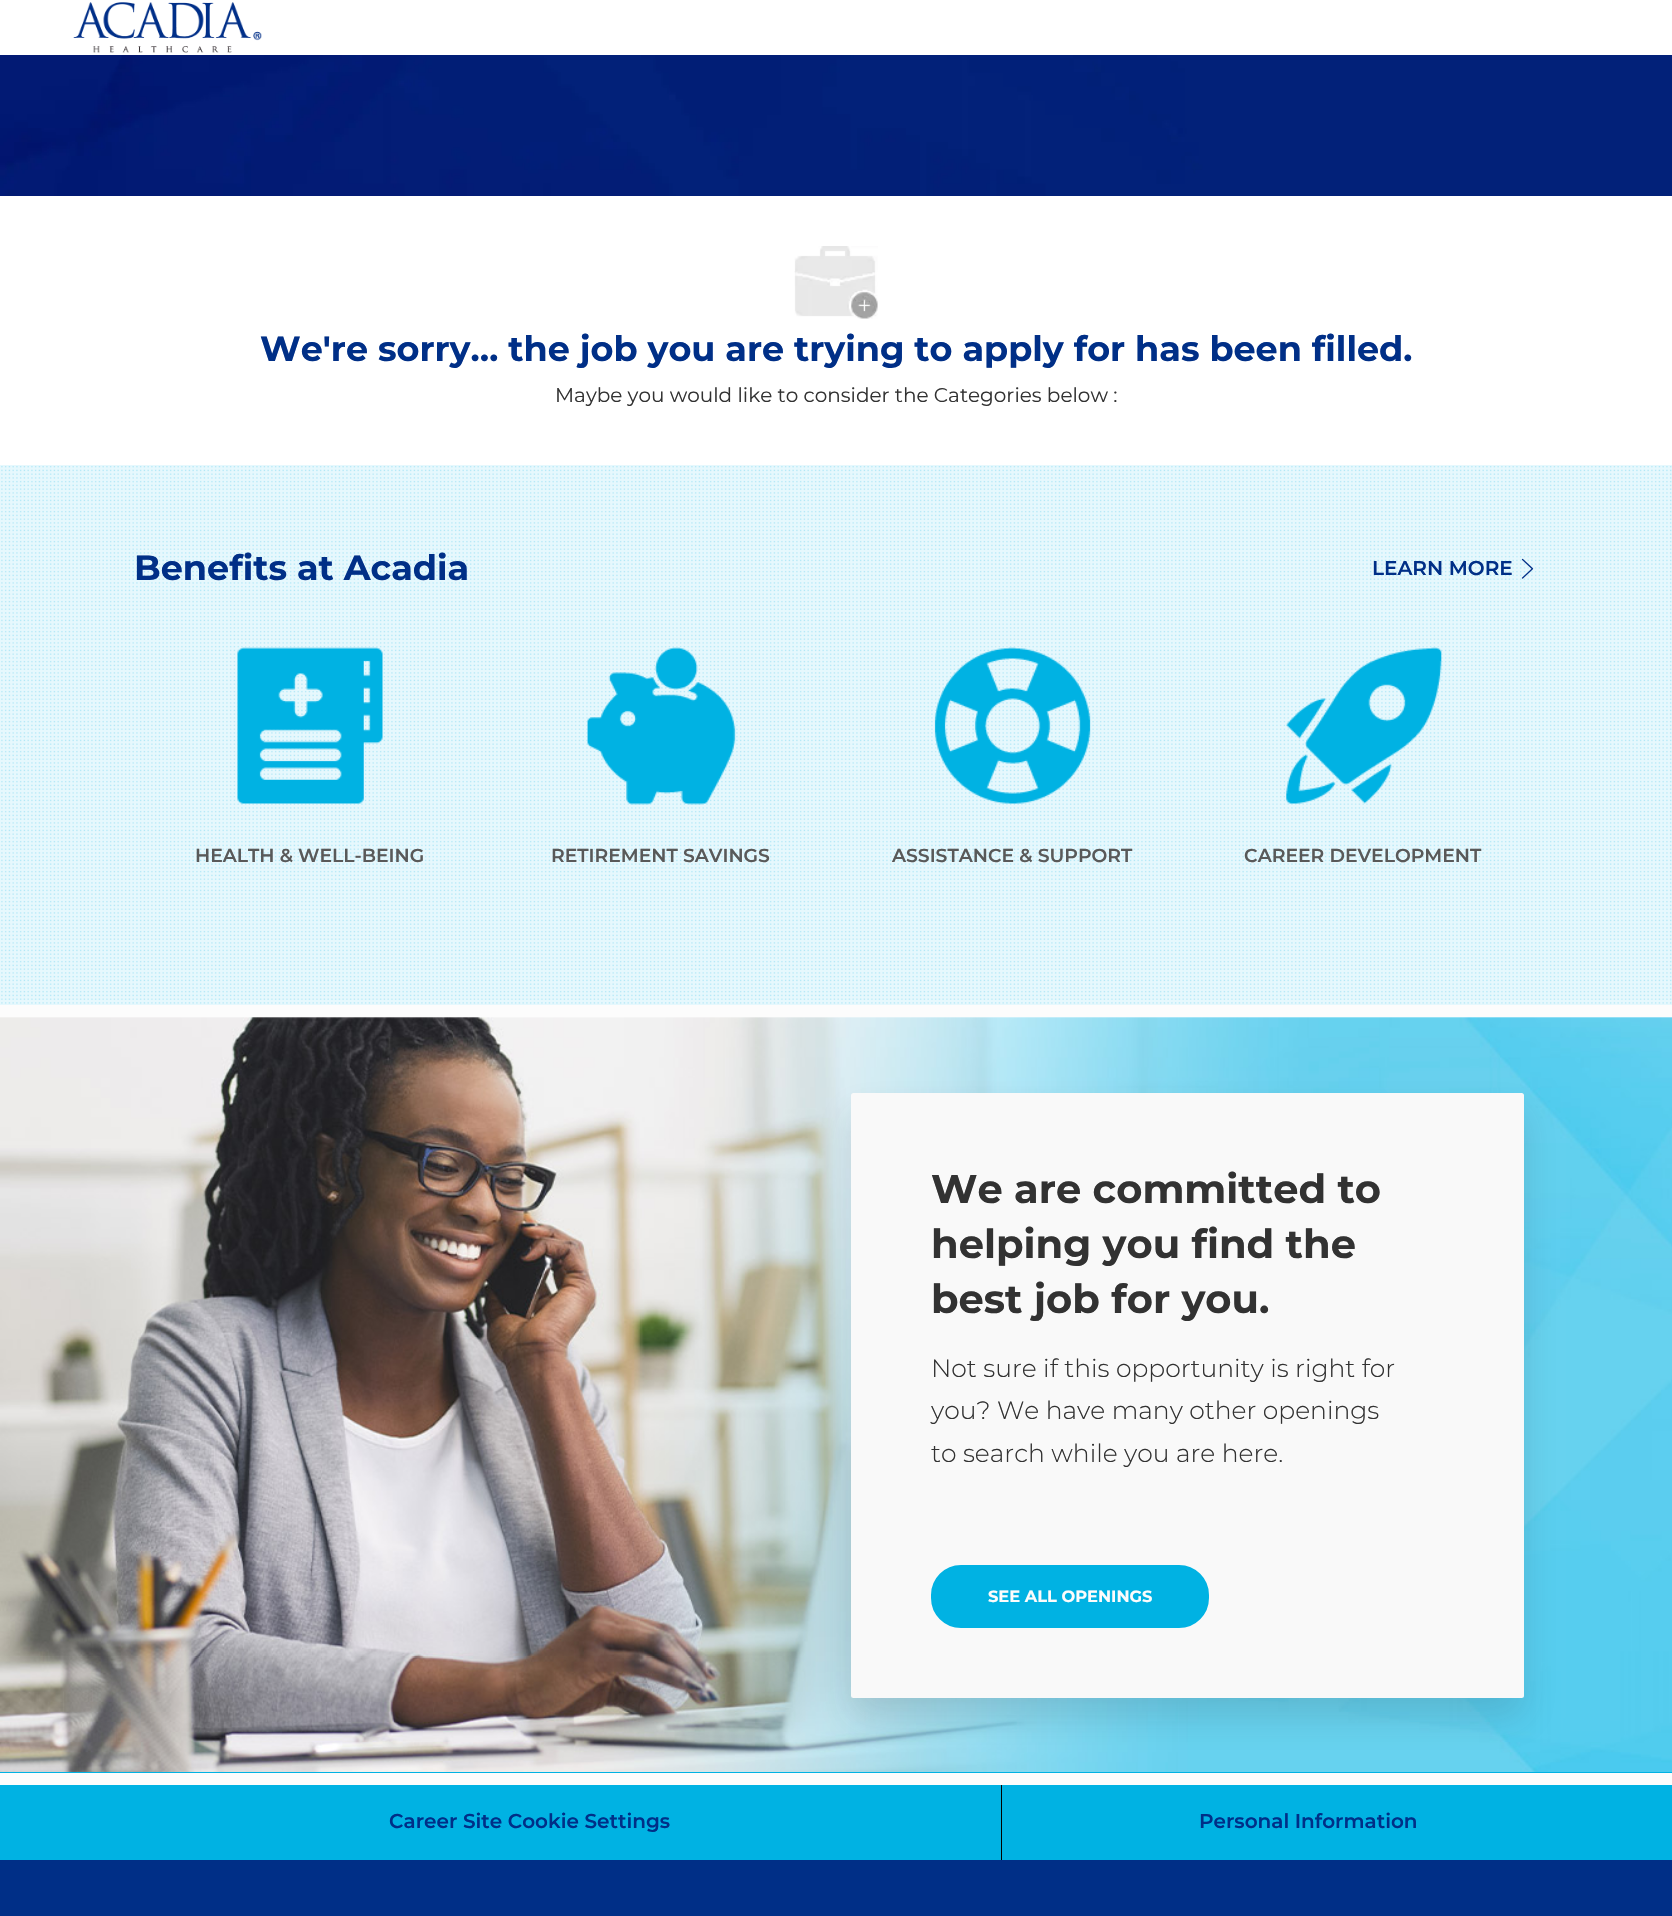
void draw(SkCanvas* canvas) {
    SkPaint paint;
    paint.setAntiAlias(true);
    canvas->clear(0xFFFFFFFF);
    canvas->drawImageRect(SkImages::DeferredFromEncodedData(SkData::MakeFromFileName("img1.png")), SkRect::MakeXYWH(73, 2, 189, 51), SkSamplingOptions());
    canvas->drawImageRect(SkImages::DeferredFromEncodedData(SkData::MakeFromFileName("img2.png")), SkRect::MakeXYWH(0, 55, 1672, 141), SkSamplingOptions());
    canvas->drawImageRect(SkImages::DeferredFromEncodedData(SkData::MakeFromFileName("img3.png")), SkRect::MakeXYWH(794, 246, 84, 73), SkSamplingOptions());
    SkFont font1(fontMgr->matchFamilyStyle("Montserrat", SkFontStyle::Bold()), 35);
    font1.setSubpixel(true);
    paint.setColor(0xFF002F87);
    canvas->drawString("We're sorry… the job you are trying to apply for has been filled.", 260, 361, font1, paint);
    SkFont font2(fontMgr->matchFamilyStyle("Montserrat", SkFontStyle::Normal()), 20);
    font2.setSubpixel(true);
    paint.setColor(0xFF323232);
    canvas->drawString("Maybe you would like to consider the Categories below :", 555, 402, font2, paint);
    paint.setColor(0xFFE6F8FD);
    canvas->drawRect(SkRect::MakeXYWH(0, 465, 1672, 540), paint);
    canvas->drawImageRect(SkImages::DeferredFromEncodedData(SkData::MakeFromFileName("img4.png")), SkRect::MakeXYWH(1, 466, 1671, 538), SkSamplingOptions());
    paint.setColor(0xFF002F87);
    canvas->drawString("Benefits at Acadia", 134, 580, font1, paint);
    SkFont font3(fontMgr->matchFamilyStyle("Montserrat", SkFontStyle(600, SkFontStyle::kNormal_Width, SkFontStyle::kUpright_Slant)), 20);
    font3.setSubpixel(true);
    canvas->drawString("LEARN MORE", 1372, 575, font3, paint);
    canvas->drawImageRect(SkImages::DeferredFromEncodedData(SkData::MakeFromFileName("img5.png")), SkRect::MakeXYWH(1521, 558, 13, 21), SkSamplingOptions());
    canvas->drawImageRect(SkImages::DeferredFromEncodedData(SkData::MakeFromFileName("img6.png")), SkRect::MakeXYWH(237, 647, 146, 157), SkSamplingOptions());
    SkFont font4(fontMgr->matchFamilyStyle("Montserrat", SkFontStyle(600, SkFontStyle::kNormal_Width, SkFontStyle::kUpright_Slant)), 18.75f);
    font4.setSubpixel(true);
    paint.setColor(0xFF595959);
    canvas->drawString("HEALTH & WELL-BEING", 195, 862, font4, paint);
    canvas->drawImageRect(SkImages::DeferredFromEncodedData(SkData::MakeFromFileName("img7.png")), SkRect::MakeXYWH(587, 647, 149, 158), SkSamplingOptions());
    canvas->drawString("RETIREMENT SAVINGS", 551, 862, font4, paint);
    canvas->drawImageRect(SkImages::DeferredFromEncodedData(SkData::MakeFromFileName("img8.png")), SkRect::MakeXYWH(934, 647, 157, 157), SkSamplingOptions());
    canvas->drawString("ASSISTANCE & SUPPORT", 892, 862, font4, paint);
    canvas->drawImageRect(SkImages::DeferredFromEncodedData(SkData::MakeFromFileName("img9.png")), SkRect::MakeXYWH(1286, 647, 156, 157), SkSamplingOptions());
    canvas->drawString("CAREER DEVELOPMENT", 1244, 862, font4, paint);
    paint.setColor(0xFFFCFCFC);
    canvas->drawRect(SkRect::MakeXYWH(0, 1005, 1672, 13), paint);
    paint.setColor(0xFF00B2E3);
    canvas->drawRect(SkRect::MakeXYWH(0, 1772, 1672, 1), paint);
    canvas->drawImageRect(SkImages::DeferredFromEncodedData(SkData::MakeFromFileName("img10.png")), SkRect::MakeXYWH(0, 1017, 1672, 755), SkSamplingOptions());
    paint.setColor(0x26323232);
    paint.setMaskFilter(SkMaskFilter::MakeBlur(kNormal_SkBlurStyle, 17.5f));
    canvas->drawRoundRect(SkRect::MakeXYWH(851, 1113, 673, 605), 2.5f, 2.5f, paint);
    paint.setMaskFilter(nullptr);
    paint.setColor(0xFFF9F9F9);
    canvas->drawRoundRect(SkRect::MakeXYWH(851, 1093, 673, 605), 2.5f, 2.5f, paint);
    SkFont font5(fontMgr->matchFamilyStyle("Montserrat", SkFontStyle::Bold()), 40);
    font5.setSubpixel(true);
    paint.setColor(0xFF323232);
    canvas->drawString("We are committed to", 931, 1203, font5, paint);
    canvas->drawString("helping you find the", 931, 1258, font5, paint);
    canvas->drawString("best job for you.", 931, 1313, font5, paint);
    SkFont font6(fontMgr->matchFamilyStyle("Montserrat", SkFontStyle(300, SkFontStyle::kNormal_Width, SkFontStyle::kUpright_Slant)), 25);
    font6.setSubpixel(true);
    canvas->drawString("Not sure if this opportunity is right for", 931, 1377, font6, paint);
    canvas->drawString("you? We have many other openings", 931, 1419, font6, paint);
    canvas->drawString("to search while you are here.", 931, 1462, font6, paint);
    paint.setColor(0xFF00B2E3);
    canvas->drawRoundRect(SkRect::MakeXYWH(932.5f, 1566.5f, 275, 60), 28.5f, 28.5f, paint);
    paint.setStyle(SkPaint::kStroke_Style);
    paint.setStrokeWidth(3);
    canvas->drawRoundRect(SkRect::MakeXYWH(932.5f, 1566.5f, 275, 60), 28.5f, 28.5f, paint);
    SkFont font7(fontMgr->matchFamilyStyle("Montserrat", SkFontStyle::Bold()), 16.25f);
    font7.setSubpixel(true);
    paint.setStyle(SkPaint::kFill_Style);
    paint.setColor(0xFFFCFCFC);
    canvas->drawString("SEE ALL OPENINGS", 988, 1602, font7, paint);
    canvas->drawRect(SkRect::MakeXYWH(0, 1773, 1672, 12), paint);
    paint.setColor(0xFF002F87);
    canvas->drawRect(SkRect::MakeXYWH(0, 1860, 1672, 56), paint);
    paint.setColor(0xFF00B2E3);
    canvas->drawRect(SkRect::MakeXYWH(0, 1785, 1672, 75), paint);
    paint.setColor(0xFF002F87);
    canvas->drawString("Career Site Cookie Settings", 389, 1828, font3, paint);
    paint.setColor(0xFF000000);
    canvas->drawRect(SkRect::MakeXYWH(1001, 1785, 1, 75), paint);
    paint.setColor(0xFF002F87);
    canvas->drawString("Personal Information", 1199, 1828, font3, paint);
}
